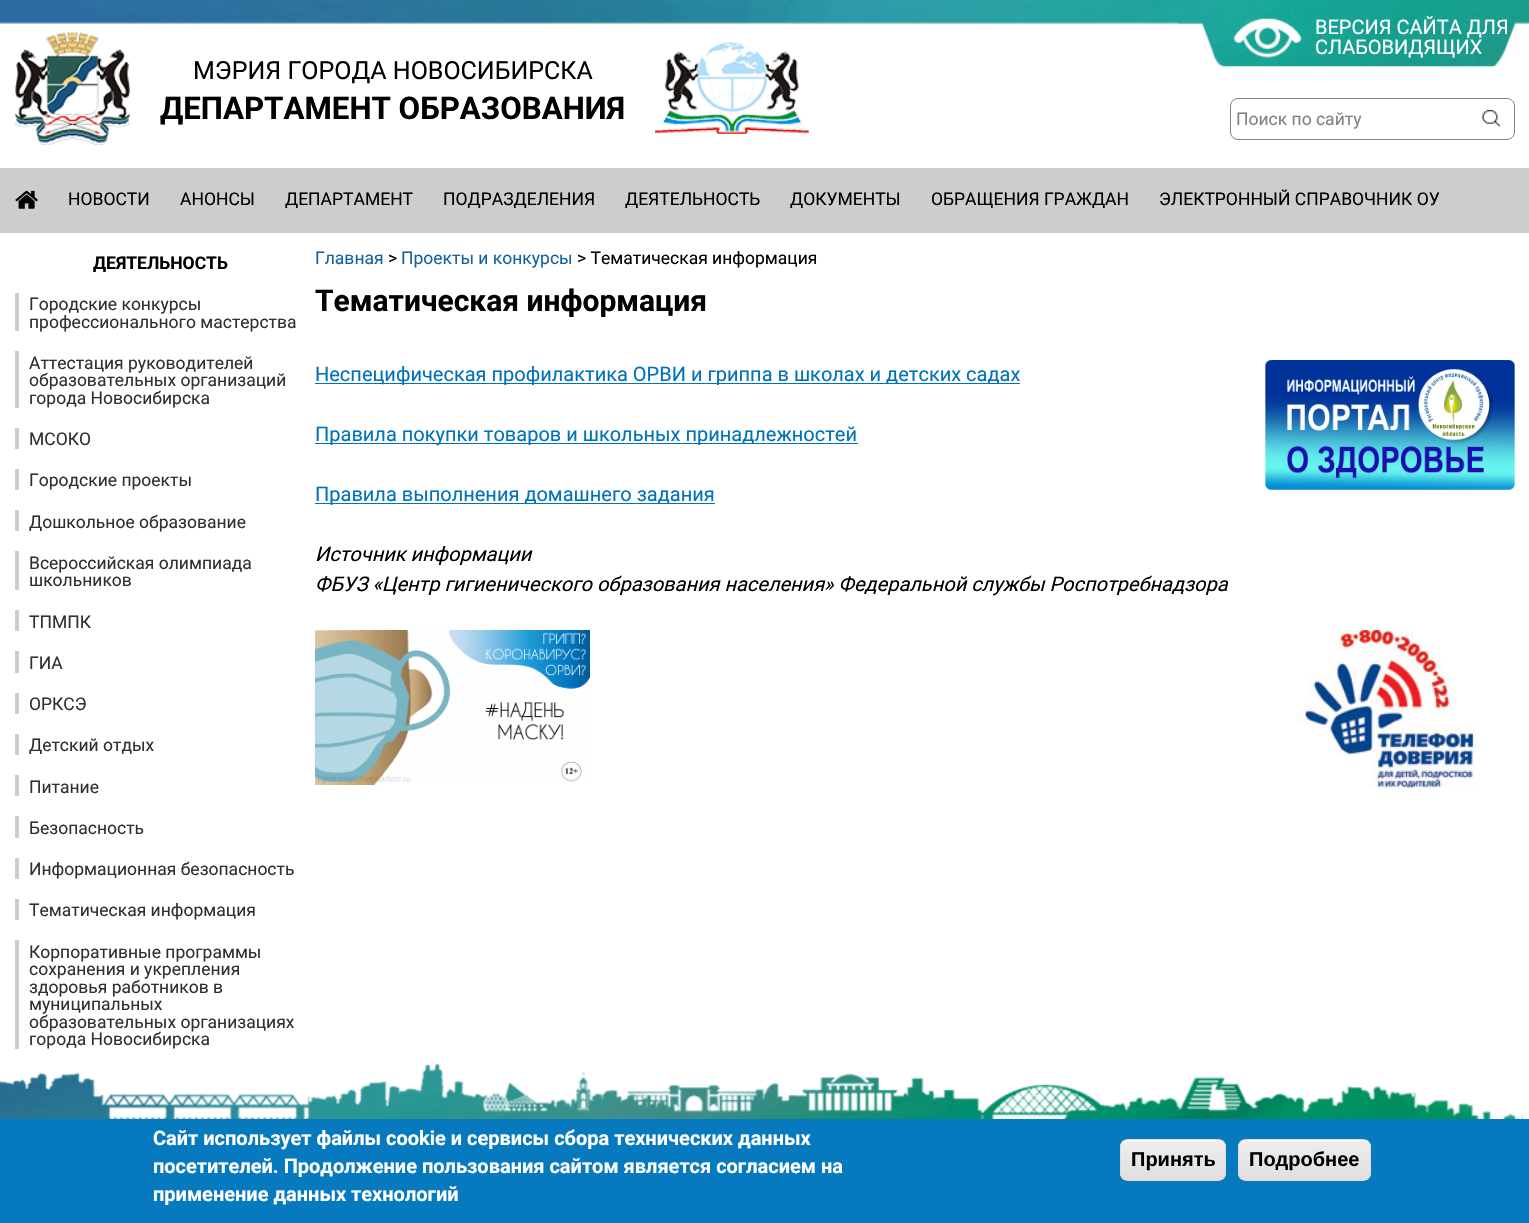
void draw(SkCanvas* canvas) {
    SkPaint paint;
    paint.setAntiAlias(true);
    canvas->clear(0xFFFFFFFF);
    canvas->drawImageRect(SkImages::DeferredFromEncodedData(SkData::MakeFromFileName("img1.png")), SkRect::MakeXYWH(0, 0, 1529, 67), SkSamplingOptions());
    canvas->drawImageRect(SkImages::DeferredFromEncodedData(SkData::MakeFromFileName("img2.png")), SkRect::MakeXYWH(15, 32, 115, 113), SkSamplingOptions());
    SkFont font1(fontMgr->matchFamilyStyle("Roboto", SkFontStyle::Normal()), 25);
    font1.setSubpixel(true);
    paint.setColor(0xFF000000);
    canvas->drawString("МЭРИЯ ГОРОДА НОВОСИБИРСКА", 193, 79, font1, paint);
    SkFont font2(fontMgr->matchFamilyStyle("Roboto", SkFontStyle::Bold()), 31.25f);
    font2.setSubpixel(true);
    canvas->drawString("ДЕПАРТАМЕНТ ОБРАЗОВАНИЯ", 160, 119, font2, paint);
    canvas->drawImageRect(SkImages::DeferredFromEncodedData(SkData::MakeFromFileName("img3.png")), SkRect::MakeXYWH(655, 42, 154, 92), SkSamplingOptions());
    canvas->drawImageRect(SkImages::DeferredFromEncodedData(SkData::MakeFromFileName("img4.png")), SkRect::MakeXYWH(1233, 18, 69, 40), SkSamplingOptions());
    SkFont font3(fontMgr->matchFamilyStyle("Roboto", SkFontStyle::Normal()), 20);
    font3.setSubpixel(true);
    paint.setColor(0xFFFFFFFF);
    canvas->drawString("ВЕРСИЯ САЙТА ДЛЯ", 1315, 34, font3, paint);
    canvas->drawString("СЛАБОВИДЯЩИХ", 1315, 54, font3, paint);
    paint.setStyle(SkPaint::kStroke_Style);
    paint.setStrokeWidth(1);
    paint.setColor(0xFF818181);
    canvas->drawRoundRect(SkRect::MakeXYWH(1230.5f, 98.5f, 284, 41), 7.5f, 7.5f, paint);
    SkFont font4(fontMgr->matchFamilyStyle("Roboto", SkFontStyle::Normal()), 17.5f);
    font4.setSubpixel(true);
    paint.setStyle(SkPaint::kFill_Style);
    canvas->drawString("Поиск по сайту", 1236, 125, font4, paint);
    canvas->drawImageRect(SkImages::DeferredFromEncodedData(SkData::MakeFromFileName("img5.png")), SkRect::MakeXYWH(1482, 110, 18, 17), SkSamplingOptions());
    paint.setColor(0xFFCDCDCD);
    canvas->drawRect(SkRect::MakeXYWH(0, 168, 1529, 65), paint);
    canvas->drawImageRect(SkImages::DeferredFromEncodedData(SkData::MakeFromFileName("img6.png")), SkRect::MakeXYWH(15, 190, 23, 19), SkSamplingOptions());
    paint.setColor(0xFF000000);
    canvas->drawString("НОВОСТИ", 68, 205, font4, paint);
    canvas->drawString("АНОНСЫ", 180, 205, font4, paint);
    canvas->drawString("ДЕПАРТАМЕНТ", 285, 205, font4, paint);
    canvas->drawString("ПОДРАЗДЕЛЕНИЯ", 443, 205, font4, paint);
    canvas->drawString("ДЕЯТЕЛЬНОСТЬ", 625, 205, font4, paint);
    canvas->drawString("ДОКУМЕНТЫ", 790, 205, font4, paint);
    canvas->drawString("ОБРАЩЕНИЯ ГРАЖДАН", 931, 205, font4, paint);
    canvas->drawString("ЭЛЕКТРОННЫЙ СПРАВОЧНИК ОУ", 1159, 205, font4, paint);
    SkFont font5(fontMgr->matchFamilyStyle("Roboto", SkFontStyle::Bold()), 17.5f);
    font5.setSubpixel(true);
    canvas->drawString("ДЕЯТЕЛЬНОСТЬ", 93, 269, font5, paint);
    paint.setColor(0xFFCDCDCD);
    canvas->drawRect(SkRect::MakeXYWH(15, 293, 4, 38), paint);
    paint.setColor(0xFF303030);
    canvas->drawString("Городские конкурсы", 29, 310, font4, paint);
    canvas->drawString("профессионального мастерства", 29, 328, font4, paint);
    paint.setColor(0xFFCDCDCD);
    canvas->drawRect(SkRect::MakeXYWH(15, 351, 4, 57), paint);
    paint.setColor(0xFF303030);
    canvas->drawString("Аттестация руководителей", 29, 369, font4, paint);
    canvas->drawString("образовательных организаций", 29, 386, font4, paint);
    canvas->drawString("города Новосибирска", 29, 404, font4, paint);
    paint.setColor(0xFFCDCDCD);
    canvas->drawRect(SkRect::MakeXYWH(15, 428, 4, 21), paint);
    paint.setColor(0xFF303030);
    canvas->drawString("МСОКО", 29, 445, font4, paint);
    paint.setColor(0xFFCDCDCD);
    canvas->drawRect(SkRect::MakeXYWH(15, 469, 4, 21), paint);
    paint.setColor(0xFF303030);
    canvas->drawString("Городские проекты", 29, 486, font4, paint);
    paint.setColor(0xFFCDCDCD);
    canvas->drawRect(SkRect::MakeXYWH(15, 510, 4, 21), paint);
    paint.setColor(0xFF303030);
    canvas->drawString("Дошкольное образование", 29, 528, font4, paint);
    paint.setColor(0xFFCDCDCD);
    canvas->drawRect(SkRect::MakeXYWH(15, 551, 4, 39), paint);
    paint.setColor(0xFF303030);
    canvas->drawString("Всероссийская олимпиада", 29, 569, font4, paint);
    canvas->drawString("школьников", 29, 586, font4, paint);
    paint.setColor(0xFFCDCDCD);
    canvas->drawRect(SkRect::MakeXYWH(15, 610, 4, 21), paint);
    paint.setColor(0xFF303030);
    canvas->drawString("ТПМПК", 29, 628, font4, paint);
    paint.setColor(0xFFCDCDCD);
    canvas->drawRect(SkRect::MakeXYWH(15, 651, 4, 22), paint);
    paint.setColor(0xFF303030);
    canvas->drawString("ГИА", 29, 669, font4, paint);
    paint.setColor(0xFFCDCDCD);
    canvas->drawRect(SkRect::MakeXYWH(15, 693, 4, 21), paint);
    paint.setColor(0xFF303030);
    canvas->drawString("ОРКСЭ", 29, 710, font4, paint);
    paint.setColor(0xFFCDCDCD);
    canvas->drawRect(SkRect::MakeXYWH(15, 734, 4, 21), paint);
    paint.setColor(0xFF303030);
    canvas->drawString("Детский отдых", 29, 751, font4, paint);
    paint.setColor(0xFFCDCDCD);
    canvas->drawRect(SkRect::MakeXYWH(15, 775, 4, 21), paint);
    paint.setColor(0xFF303030);
    canvas->drawString("Питание", 29, 793, font4, paint);
    paint.setColor(0xFFCDCDCD);
    canvas->drawRect(SkRect::MakeXYWH(15, 816, 4, 22), paint);
    paint.setColor(0xFF303030);
    canvas->drawString("Безопасность", 29, 834, font4, paint);
    paint.setColor(0xFFCDCDCD);
    canvas->drawRect(SkRect::MakeXYWH(15, 858, 4, 21), paint);
    paint.setColor(0xFF303030);
    canvas->drawString("Информационная безопасность", 29, 875, font4, paint);
    paint.setColor(0xFFCDCDCD);
    canvas->drawRect(SkRect::MakeXYWH(15, 899, 4, 21), paint);
    paint.setColor(0xFF303030);
    canvas->drawString("Тематическая информация", 29, 916, font4, paint);
    paint.setColor(0xFFCDCDCD);
    canvas->drawRect(SkRect::MakeXYWH(15, 940, 4, 109), paint);
    paint.setColor(0xFF303030);
    canvas->drawString("Корпоративные программы", 29, 958, font4, paint);
    canvas->drawString("сохранения и укрепления", 29, 975, font4, paint);
    canvas->drawString("здоровья работников в", 29, 993, font4, paint);
    canvas->drawString("муниципальных", 29, 1010, font4, paint);
    canvas->drawString("образовательных организациях", 29, 1028, font4, paint);
    canvas->drawString("города Новосибирска", 29, 1045, font4, paint);
    paint.setColor(0xFF1262A1);
    canvas->drawString("Главная", 315, 264, font4, paint);
    paint.setColor(0xFF000000);
    canvas->drawString(">", 388, 264, font4, paint);
    paint.setColor(0xFF1262A1);
    canvas->drawString("Проекты и конкурсы", 401, 264, font4, paint);
    paint.setColor(0xFF000000);
    canvas->drawString("> Тематическая информация", 577, 264, font4, paint);
    SkFont font6(fontMgr->matchFamilyStyle("Roboto", SkFontStyle::Bold()), 30);
    font6.setSubpixel(true);
    canvas->drawString("Тематическая информация", 315, 311, font6, paint);
    paint.setColor(0xFF0072B9);
    canvas->drawRect(SkRect::MakeXYWH(315, 383, 705, 1), paint);
    canvas->drawString("Неспецифическая профилактика ОРВИ и гриппа в школах и детских садах", 315, 381, font3, paint);
    canvas->drawImageRect(SkImages::DeferredFromEncodedData(SkData::MakeFromFileName("img7.png")), SkRect::MakeXYWH(1265, 360, 250, 130), SkSamplingOptions());
    canvas->drawRect(SkRect::MakeXYWH(315, 443, 543, 1), paint);
    canvas->drawString("Правила покупки товаров и школьных принадлежностей", 315, 441, font3, paint);
    canvas->drawRect(SkRect::MakeXYWH(315, 503, 400, 1), paint);
    canvas->drawString("Правила выполнения домашнего задания", 315, 501, font3, paint);
    SkFont font7(fontMgr->matchFamilyStyle("Roboto", SkFontStyle::Italic()), 20);
    font7.setSubpixel(true);
    paint.setColor(0xFF000000);
    canvas->drawString("Источник информации", 315, 561, font7, paint);
    canvas->drawString("ФБУЗ «Центр гигиенического образования населения» Федеральной службы Роспотребнадзора", 315, 591, font7, paint);
    canvas->drawImageRect(SkImages::DeferredFromEncodedData(SkData::MakeFromFileName("img8.png")), SkRect::MakeXYWH(315, 630, 275, 155), SkSamplingOptions());
    canvas->drawImageRect(SkImages::DeferredFromEncodedData(SkData::MakeFromFileName("img9.png")), SkRect::MakeXYWH(1296, 630, 180, 158), SkSamplingOptions());
    canvas->drawImageRect(SkImages::DeferredFromEncodedData(SkData::MakeFromFileName("img10.png")), SkRect::MakeXYWH(0, 1063, 1524, 56), SkSamplingOptions());
    paint.setColor(0xFF0779BF);
    canvas->drawRect(SkRect::MakeXYWH(0, 1119, 1529, 104), paint);
    SkFont font8(fontMgr->matchFamilyStyle("Roboto", SkFontStyle::Bold()), 20);
    font8.setSubpixel(true);
    paint.setColor(0xFFFFFFFF);
    canvas->drawString("Сайт использует файлы cookie и сервисы сбора технических данных", 153, 1145, font8, paint);
    canvas->drawString("посетителей. Продолжение пользования сайтом является согласием на", 153, 1173, font8, paint);
    canvas->drawString("применение данных технологий", 153, 1201, font8, paint);
    canvas->save();
    canvas->clipPath(SkPathBuilder().moveTo(1128, 1139).lineTo(1218, 1139).cubicTo(1222.5f, 1139, 1226, 1142.5f, 1226, 1147).lineTo(1226, 1173).cubicTo(1226, 1177.5f, 1222.5f, 1181, 1218, 1181).lineTo(1128, 1181).cubicTo(1123.5f, 1181, 1120, 1177.5f, 1120, 1173).lineTo(1120, 1147).cubicTo(1120, 1142.5f, 1123.5f, 1139, 1128, 1139).close().detach(), true);
    {
        const SkColor colors[] = {0xFFEDEDED, 0xFFDFDFDF};
        const float stops[] = {0.05f, 1};
        const SkPoint ends[] = {{1173, 1140}, {1173, 1180}};
        paint.setShader(SkGradientShader::MakeLinear(ends, colors, stops, 2, SkTileMode::kClamp));
        paint.setAlpha(255);
    }
    canvas->drawRect(SkRect::MakeXYWH(1120, 1140, 106, 40), paint);
    canvas->restore();
    paint.setShader(nullptr);
    paint.setColor(0xFFFFFFFF);
    canvas->drawPath(SkPathBuilder().moveTo(1128, 1141).lineTo(1219, 1141).cubicTo(1222, 1141, 1225, 1144, 1225, 1148).cubicTo(1225, 1136, 1213, 1140, 1204, 1140).lineTo(1142, 1140).cubicTo(1133, 1140, 1121, 1136, 1121, 1148).cubicTo(1121, 1144, 1124, 1141, 1128, 1141).close().detach(), paint);
    paint.setStyle(SkPaint::kStroke_Style);
    paint.setColor(0xFFDCDCDC);
    canvas->drawRoundRect(SkRect::MakeXYWH(1120.5f, 1139.5f, 105, 41), 7.5f, 7.5f, paint);
    SkFont font9(fontMgr->matchFamilyStyle("Liberation Sans", SkFontStyle::Bold()), 20);
    font9.setSubpixel(true);
    paint.setStyle(SkPaint::kFill_Style);
    paint.setColor(0xFF000000);
    canvas->drawString("Принять", 1131, 1166, font9, paint);
    canvas->save();
    canvas->clipPath(SkPathBuilder().moveTo(1246, 1139).lineTo(1363, 1139).cubicTo(1367.5f, 1139, 1371, 1142.5f, 1371, 1147).lineTo(1371, 1173).cubicTo(1371, 1177.5f, 1367.5f, 1181, 1363, 1181).lineTo(1246, 1181).cubicTo(1241.5f, 1181, 1238, 1177.5f, 1238, 1173).lineTo(1238, 1147).cubicTo(1238, 1142.5f, 1241.5f, 1139, 1246, 1139).close().detach(), true);
    {
        const SkColor colors[] = {0xFFEDEDED, 0xFFDFDFDF};
        const float stops[] = {0.05f, 1};
        const SkPoint ends[] = {{1304, 1140}, {1304, 1180}};
        paint.setShader(SkGradientShader::MakeLinear(ends, colors, stops, 2, SkTileMode::kClamp));
        paint.setAlpha(255);
    }
    canvas->drawRect(SkRect::MakeXYWH(1238, 1140, 133, 40), paint);
    canvas->restore();
    paint.setShader(nullptr);
    paint.setColor(0xFFFFFFFF);
    canvas->drawPath(SkPathBuilder().moveTo(1245, 1141).lineTo(1364, 1141).cubicTo(1367, 1141, 1370, 1144, 1370, 1148).lineTo(1370, 1146).cubicTo(1370, 1143, 1367, 1140, 1364, 1140).lineTo(1245, 1140).cubicTo(1242, 1140, 1239, 1143, 1239, 1146).lineTo(1239, 1148).cubicTo(1239, 1144, 1242, 1141, 1245, 1141).close().detach(), paint);
    paint.setStyle(SkPaint::kStroke_Style);
    paint.setColor(0xFFDCDCDC);
    canvas->drawRoundRect(SkRect::MakeXYWH(1238.5f, 1139.5f, 132, 41), 7.5f, 7.5f, paint);
    paint.setStyle(SkPaint::kFill_Style);
    paint.setColor(0xFF000000);
    canvas->drawString("Подробнее", 1249, 1166, font9, paint);
}
